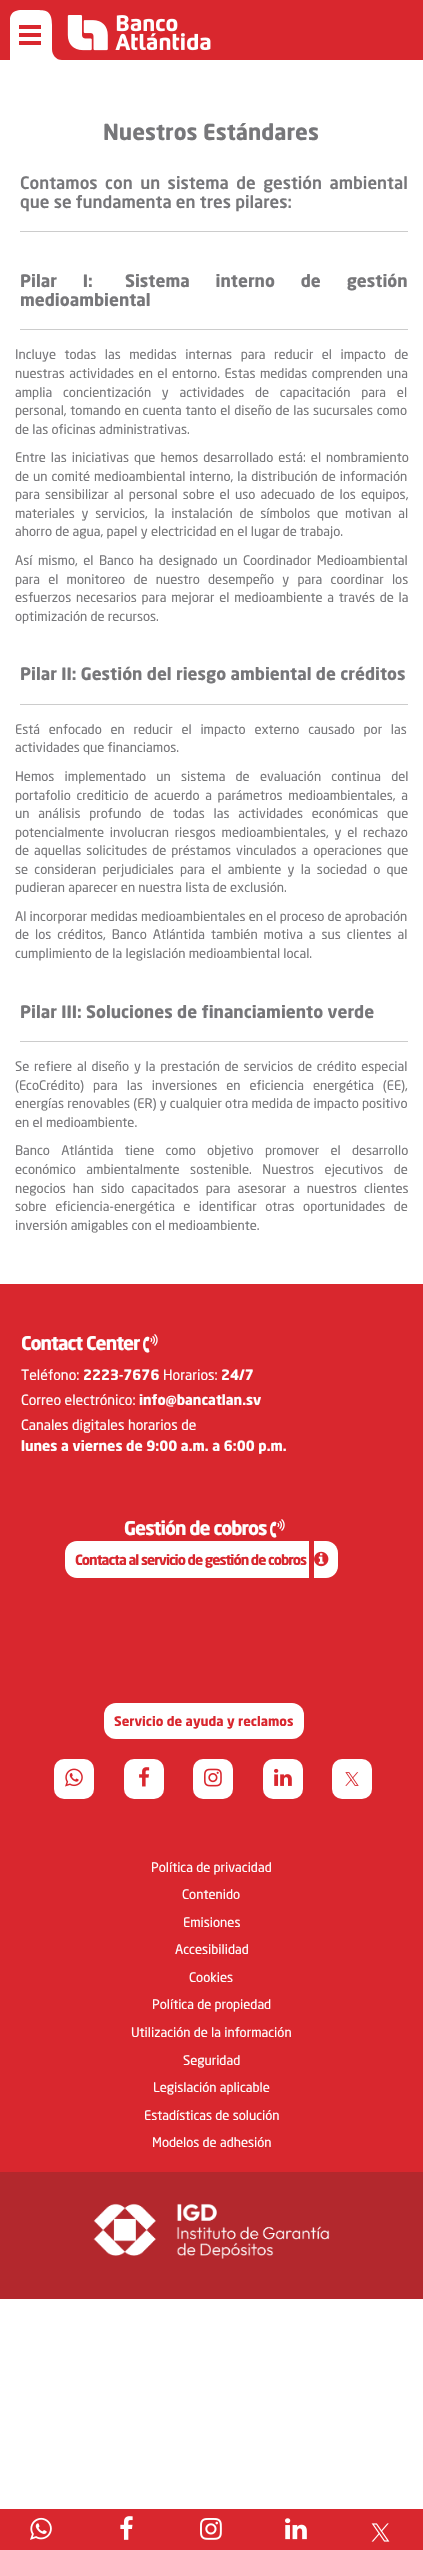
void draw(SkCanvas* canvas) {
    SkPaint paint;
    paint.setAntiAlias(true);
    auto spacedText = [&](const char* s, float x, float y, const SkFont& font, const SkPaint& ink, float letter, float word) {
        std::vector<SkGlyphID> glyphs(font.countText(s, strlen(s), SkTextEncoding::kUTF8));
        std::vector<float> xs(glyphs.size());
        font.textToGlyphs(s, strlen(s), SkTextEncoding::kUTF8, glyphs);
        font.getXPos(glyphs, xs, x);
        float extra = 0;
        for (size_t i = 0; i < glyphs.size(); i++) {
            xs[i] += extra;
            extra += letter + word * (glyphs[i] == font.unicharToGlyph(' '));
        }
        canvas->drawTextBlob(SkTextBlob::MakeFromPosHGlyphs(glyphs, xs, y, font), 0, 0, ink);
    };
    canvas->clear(0xFFFFFFFF);
    paint.setColor(0xFFD9272E);
    canvas->drawRect(SkRect::MakeXYWH(0, 0, 423, 60), paint);
    canvas->save();
    canvas->clipRect(SkRect::MakeXYWH(10, 10, 52, 50));
    paint.setColor(0xFFFFFFFF);
    canvas->drawPath(SkPathBuilder().moveTo(52, 49).lineTo(52, 25).cubicTo(52, 9, 45, 10, 31, 10).cubicTo(23, 10, 12, 8, 10, 18).lineTo(10, 60).lineTo(62, 60).cubicTo(56, 60, 52, 55, 52, 49).close().detach(), paint);
    canvas->restore();
    paint.setColor(0xFFD9272E);
    canvas->drawRect(SkRect::MakeXYWH(19, 25, 22, 4), paint);
    canvas->drawRect(SkRect::MakeXYWH(19, 33, 22, 4), paint);
    canvas->drawRect(SkRect::MakeXYWH(19, 41, 22, 4), paint);
    canvas->drawImageRect(SkImages::DeferredFromEncodedData(SkData::MakeFromFileName("img1.png")), SkRect::MakeXYWH(67, 15, 144, 36), SkSamplingOptions());
    SkFont font1(fontMgr->matchFamilyStyle("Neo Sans", SkFontStyle::Bold()), 21.75f);
    font1.setSubpixel(true);
    paint.setColor(0xFF77777A);
    canvas->drawString("Nuestros Estándares", 103, 140, font1, paint);
    paint.setColor(0xFFCCCCCC);
    canvas->drawRect(SkRect::MakeXYWH(20, 231, 388, 1), paint);
    SkFont font2(fontMgr->matchFamilyStyle("Neo Sans", SkFontStyle(500, SkFontStyle::kNormal_Width, SkFontStyle::kUpright_Slant)), 16.9f);
    font2.setSubpixel(true);
    paint.setColor(0xFF77777A);
    spacedText("Contamos con un sistema de gestión ambiental", 20, 189, font2, paint, 0, 3.25f);
    canvas->drawString("que se fundamenta en tres pilares:", 20, 208, font2, paint);
    paint.setColor(0xFFCCCCCC);
    canvas->drawRect(SkRect::MakeXYWH(20, 329, 388, 1), paint);
    SkFont font3(fontMgr->matchFamilyStyle("Neo Sans", SkFontStyle::Bold()), 16.9f);
    font3.setSubpixel(true);
    paint.setColor(0xFF77777A);
    spacedText("Pilar I:", 20, 287, font3, paint, 0, 21.5f);
    spacedText("Sistema interno de gestión", 125, 287, font3, paint, 0, 21.5f);
    canvas->drawString("medioambiental", 20, 306, font3, paint);
    SkFont font4(fontMgr->matchFamilyStyle("Neo Sans", SkFontStyle::Normal()), 13);
    font4.setSubpixel(true);
    spacedText("Incluye todas las medidas internas para reducir el impacto de", 15, 359, font4, paint, 0, 5.25f);
    spacedText("nuestras actividades en el entorno. Estas medidas comprenden una", 15, 378, font4, paint, 0, 1.25f);
    spacedText("amplia concientización y actividades de capacitación para el", 15, 397, font4, paint, 0, 7.5f);
    spacedText("personal, tomando en cuenta tanto el diseño de las sucursales como", 15, 415, font4, paint, 0, 0.5f);
    canvas->drawString("de las oficinas administrativas.", 15, 434, font4, paint);
    spacedText("Entre las iniciativas que hemos desarrollado está: el nombramiento", 15, 462, font4, paint, 0, 1.75f);
    spacedText("de un comité medioambiental interno, la distribución de información", 15, 481, font4, paint, 0, 0.75f);
    spacedText("para sensibilizar al personal sobre el uso adecuado de los equipos,", 15, 499, font4, paint, 0, 1.9f);
    spacedText("materiales y servicios, la instalación de símbolos que motivan al", 15, 518, font4, paint, 0, 3.5f);
    canvas->drawString("ahorro de agua, papel y electricidad en el lugar de trabajo.", 15, 536, font4, paint);
    spacedText("Así mismo, el Banco ha designado un Coordinador Medioambiental", 15, 565, font4, paint, 0, 2.25f);
    spacedText("para el monitoreo de nuestro desempeño y para coordinar los", 15, 584, font4, paint, 0, 5);
    spacedText("esfuerzos necesarios para mejorar el medioambiente a través de la", 15, 602, font4, paint, 0, 1.5f);
    canvas->drawString("optimización de recursos.", 15, 621, font4, paint);
    paint.setColor(0xFFCCCCCC);
    canvas->drawRect(SkRect::MakeXYWH(20, 704, 388, 1), paint);
    paint.setColor(0xFF77777A);
    canvas->drawString("Pilar II: Gestión del riesgo ambiental de créditos", 20, 680, font3, paint);
    spacedText("Está enfocado en reducir el impacto externo causado por las", 15, 734, font4, paint, 0, 5.5f);
    canvas->drawString("actividades que financiamos.", 15, 752, font4, paint);
    spacedText("Hemos implementado un sistema de evaluación continua del", 15, 781, font4, paint, 0, 7);
    spacedText("portafolio crediticio de acuerdo a parámetros medioambientales, a", 15, 800, font4, paint, 0, 2.5f);
    spacedText("un análisis profundo de todas las actividades económicas que", 15, 818, font4, paint, 0, 5.5f);
    spacedText("potencialmente involucran riesgos medioambientales, y el rechazo", 15, 837, font4, paint, 0, 2.5f);
    spacedText("de aquellas solicitudes de préstamos vinculados a operaciones que", 15, 855, font4, paint, 0, 1.75f);
    spacedText("se consideran perjudiciales para el ambiente y la sociedad o que", 15, 874, font4, paint, 0, 3);
    canvas->drawString("pudieran aparecer en nuestra lista de exclusión.", 15, 892, font4, paint);
    canvas->drawString("Al incorporar medidas medioambientales en el proceso de aprobación", 15, 921, font4, paint);
    spacedText("de los créditos, Banco Atlántida también motiva a sus clientes al", 15, 939, font4, paint, 0, 2.75f);
    canvas->drawString("cumplimiento de la legislación medioambiental local.", 15, 958, font4, paint);
    paint.setColor(0xFFCCCCCC);
    canvas->drawRect(SkRect::MakeXYWH(20, 1041, 388, 1), paint);
    paint.setColor(0xFF77777A);
    canvas->drawString("Pilar III: Soluciones de financiamiento verde", 20, 1018, font3, paint);
    spacedText("Se refiere al diseño y la prestación de servicios de crédito especial", 15, 1071, font4, paint, 0, 1.5f);
    spacedText("(EcoCrédito) para las inversiones en eficiencia energética (EE),", 15, 1090, font4, paint, 0, 5.75f);
    canvas->drawString("energías renovables (ER) y cualquier otra medida de impacto positivo", 15, 1108, font4, paint);
    canvas->drawString("en el medioambiente.", 15, 1127, font4, paint);
    spacedText("Banco Atlántida tiene como objetivo promover el desarrollo", 15, 1155, font4, paint, 0, 8);
    spacedText("económico ambientalmente sostenible. Nuestros ejecutivos de", 15, 1174, font4, paint, 0, 7.25f);
    spacedText("negocios han sido capacitados para asesorar a nuestros clientes", 15, 1193, font4, paint, 0, 3.75f);
    spacedText("sobre eficiencia-energética e identificar otras oportunidades de", 15, 1211, font4, paint, 0, 5.25f);
    canvas->drawString("inversión amigables con el medioambiente.", 15, 1230, font4, paint);
    paint.setColor(0xFFD9272E);
    canvas->drawRect(SkRect::MakeXYWH(0, 1284, 423, 888), paint);
    SkFont font5(fontMgr->matchFamilyStyle("Neo Sans", SkFontStyle::Bold()), 18.75f);
    font5.setSubpixel(true);
    paint.setColor(0xFFFFFFFF);
    spacedText("Contact Center", 21, 1350, font5, paint, -1, 0);
    canvas->drawImageRect(SkImages::DeferredFromEncodedData(SkData::MakeFromFileName("img2.png")), SkRect::MakeXYWH(143, 1334, 15, 19), SkSamplingOptions());
    SkFont font6(fontMgr->matchFamilyStyle("Neo Sans", SkFontStyle::Normal()), 14);
    font6.setSubpixel(true);
    canvas->drawString("Teléfono:", 21, 1380, font6, paint);
    SkFont font7(fontMgr->matchFamilyStyle("Neo Sans", SkFontStyle::Bold()), 14);
    font7.setSubpixel(true);
    canvas->drawString("2223-7676", 83, 1380, font7, paint);
    canvas->drawString("Horarios:", 163, 1380, font6, paint);
    canvas->drawString("24/7", 221, 1380, font7, paint);
    canvas->drawString("Correo electrónico:", 21, 1405, font6, paint);
    canvas->drawString("info@bancatlan.sv", 139, 1405, font7, paint);
    canvas->drawString("Canales digitales horarios de", 21, 1430, font6, paint);
    canvas->drawString("lunes a viernes de 9:00 a.m. a 6:00 p.m.", 21, 1451, font7, paint);
    spacedText("Gestión de cobros", 124, 1535, font5, paint, -1, 0);
    canvas->drawImageRect(SkImages::DeferredFromEncodedData(SkData::MakeFromFileName("img2.png")), SkRect::MakeXYWH(270, 1519, 15, 19), SkSamplingOptions());
    canvas->drawPath(SkPathBuilder().moveTo(77, 1541).lineTo(309, 1541).lineTo(309, 1578).lineTo(77, 1578).cubicTo(70.5f, 1578, 65, 1572.5f, 65, 1566).lineTo(65, 1553).cubicTo(65, 1546.5f, 70.5f, 1541, 77, 1541).close().detach(), paint);
    canvas->drawPath(SkPathBuilder().moveTo(314, 1541).lineTo(326, 1541).cubicTo(332.5f, 1541, 338, 1546.5f, 338, 1553).lineTo(338, 1566).cubicTo(338, 1572.5f, 332.5f, 1578, 326, 1578).lineTo(314, 1578).close().detach(), paint);
    paint.setColor(0xFFD9272E);
    spacedText("Contacta al servicio de gestión de cobros", 75, 1565, font7, paint, -1, 0);
    canvas->drawImageRect(SkImages::DeferredFromEncodedData(SkData::MakeFromFileName("img3.png")), SkRect::MakeXYWH(314, 1551, 15, 16), SkSamplingOptions());
    paint.setColor(0xFFFFFFFF);
    canvas->drawRoundRect(SkRect::MakeXYWH(104, 1703, 200, 36), 12, 12, paint);
    SkFont font8(fontMgr->matchFamilyStyle("Neo Sans", SkFontStyle::Bold()), 13);
    font8.setSubpixel(true);
    paint.setColor(0xFFD9272E);
    canvas->drawString("Servicio de ayuda y reclamos", 114, 1726, font8, paint);
    paint.setColor(0xFFFFFFFF);
    canvas->drawRoundRect(SkRect::MakeXYWH(54, 1759, 40, 40), 10, 10, paint);
    canvas->drawImageRect(SkImages::DeferredFromEncodedData(SkData::MakeFromFileName("img4.png")), SkRect::MakeXYWH(65, 1768, 18, 19), SkSamplingOptions());
    canvas->drawRoundRect(SkRect::MakeXYWH(124, 1759, 40, 40), 10, 10, paint);
    canvas->drawImageRect(SkImages::DeferredFromEncodedData(SkData::MakeFromFileName("img5.png")), SkRect::MakeXYWH(139, 1767, 11, 20), SkSamplingOptions());
    canvas->drawRoundRect(SkRect::MakeXYWH(193, 1759, 40, 40), 10, 10, paint);
    canvas->drawImageRect(SkImages::DeferredFromEncodedData(SkData::MakeFromFileName("img6.png")), SkRect::MakeXYWH(204, 1768, 18, 19), SkSamplingOptions());
    canvas->drawRoundRect(SkRect::MakeXYWH(263, 1759, 40, 40), 10, 10, paint);
    canvas->drawImageRect(SkImages::DeferredFromEncodedData(SkData::MakeFromFileName("img7.png")), SkRect::MakeXYWH(274, 1768, 18, 18), SkSamplingOptions());
    canvas->drawRoundRect(SkRect::MakeXYWH(332, 1759, 40, 40), 10, 10, paint);
    canvas->drawImageRect(SkImages::DeferredFromEncodedData(SkData::MakeFromFileName("img8.png")), SkRect::MakeXYWH(345, 1772, 14, 14), SkSamplingOptions());
    canvas->drawString("Política de privacidad", 151, 1872, font4, paint);
    canvas->drawString("Contenido", 182, 1899, font4, paint);
    canvas->drawString("Emisiones", 183, 1927, font4, paint);
    canvas->drawString("Accesibilidad", 175, 1954, font4, paint);
    canvas->drawString("Cookies", 189, 1982, font4, paint);
    canvas->drawString("Política de propiedad", 152, 2009, font4, paint);
    canvas->drawString("Utilización de la información", 131, 2037, font4, paint);
    canvas->drawString("Seguridad", 183, 2065, font4, paint);
    canvas->drawString("Legislación aplicable", 153, 2092, font4, paint);
    canvas->drawString("Estadísticas de solución", 144, 2120, font4, paint);
    canvas->drawString("Modelos de adhesión", 152, 2147, font4, paint);
    paint.setColor(0xFFB3282D);
    canvas->drawRect(SkRect::MakeXYWH(0, 2172, 423, 127), paint);
    canvas->drawImageRect(SkImages::DeferredFromEncodedData(SkData::MakeFromFileName("img9.png")), SkRect::MakeXYWH(93, 2203, 237, 56), SkSamplingOptions());
    paint.setColor(0xFFD9272E);
    canvas->drawRect(SkRect::MakeXYWH(0, 2509, 423, 41), paint);
    canvas->drawImageRect(SkImages::DeferredFromEncodedData(SkData::MakeFromFileName("img10.png")), SkRect::MakeXYWH(30, 2517, 22, 23), SkSamplingOptions());
    canvas->drawImageRect(SkImages::DeferredFromEncodedData(SkData::MakeFromFileName("img11.png")), SkRect::MakeXYWH(120, 2516, 13, 24), SkSamplingOptions());
    canvas->drawImageRect(SkImages::DeferredFromEncodedData(SkData::MakeFromFileName("img12.png")), SkRect::MakeXYWH(200, 2518, 22, 22), SkSamplingOptions());
    canvas->drawImageRect(SkImages::DeferredFromEncodedData(SkData::MakeFromFileName("img13.png")), SkRect::MakeXYWH(285, 2518, 22, 22), SkSamplingOptions());
    canvas->drawImageRect(SkImages::DeferredFromEncodedData(SkData::MakeFromFileName("img14.png")), SkRect::MakeXYWH(371, 2523, 19, 19), SkSamplingOptions());
}
